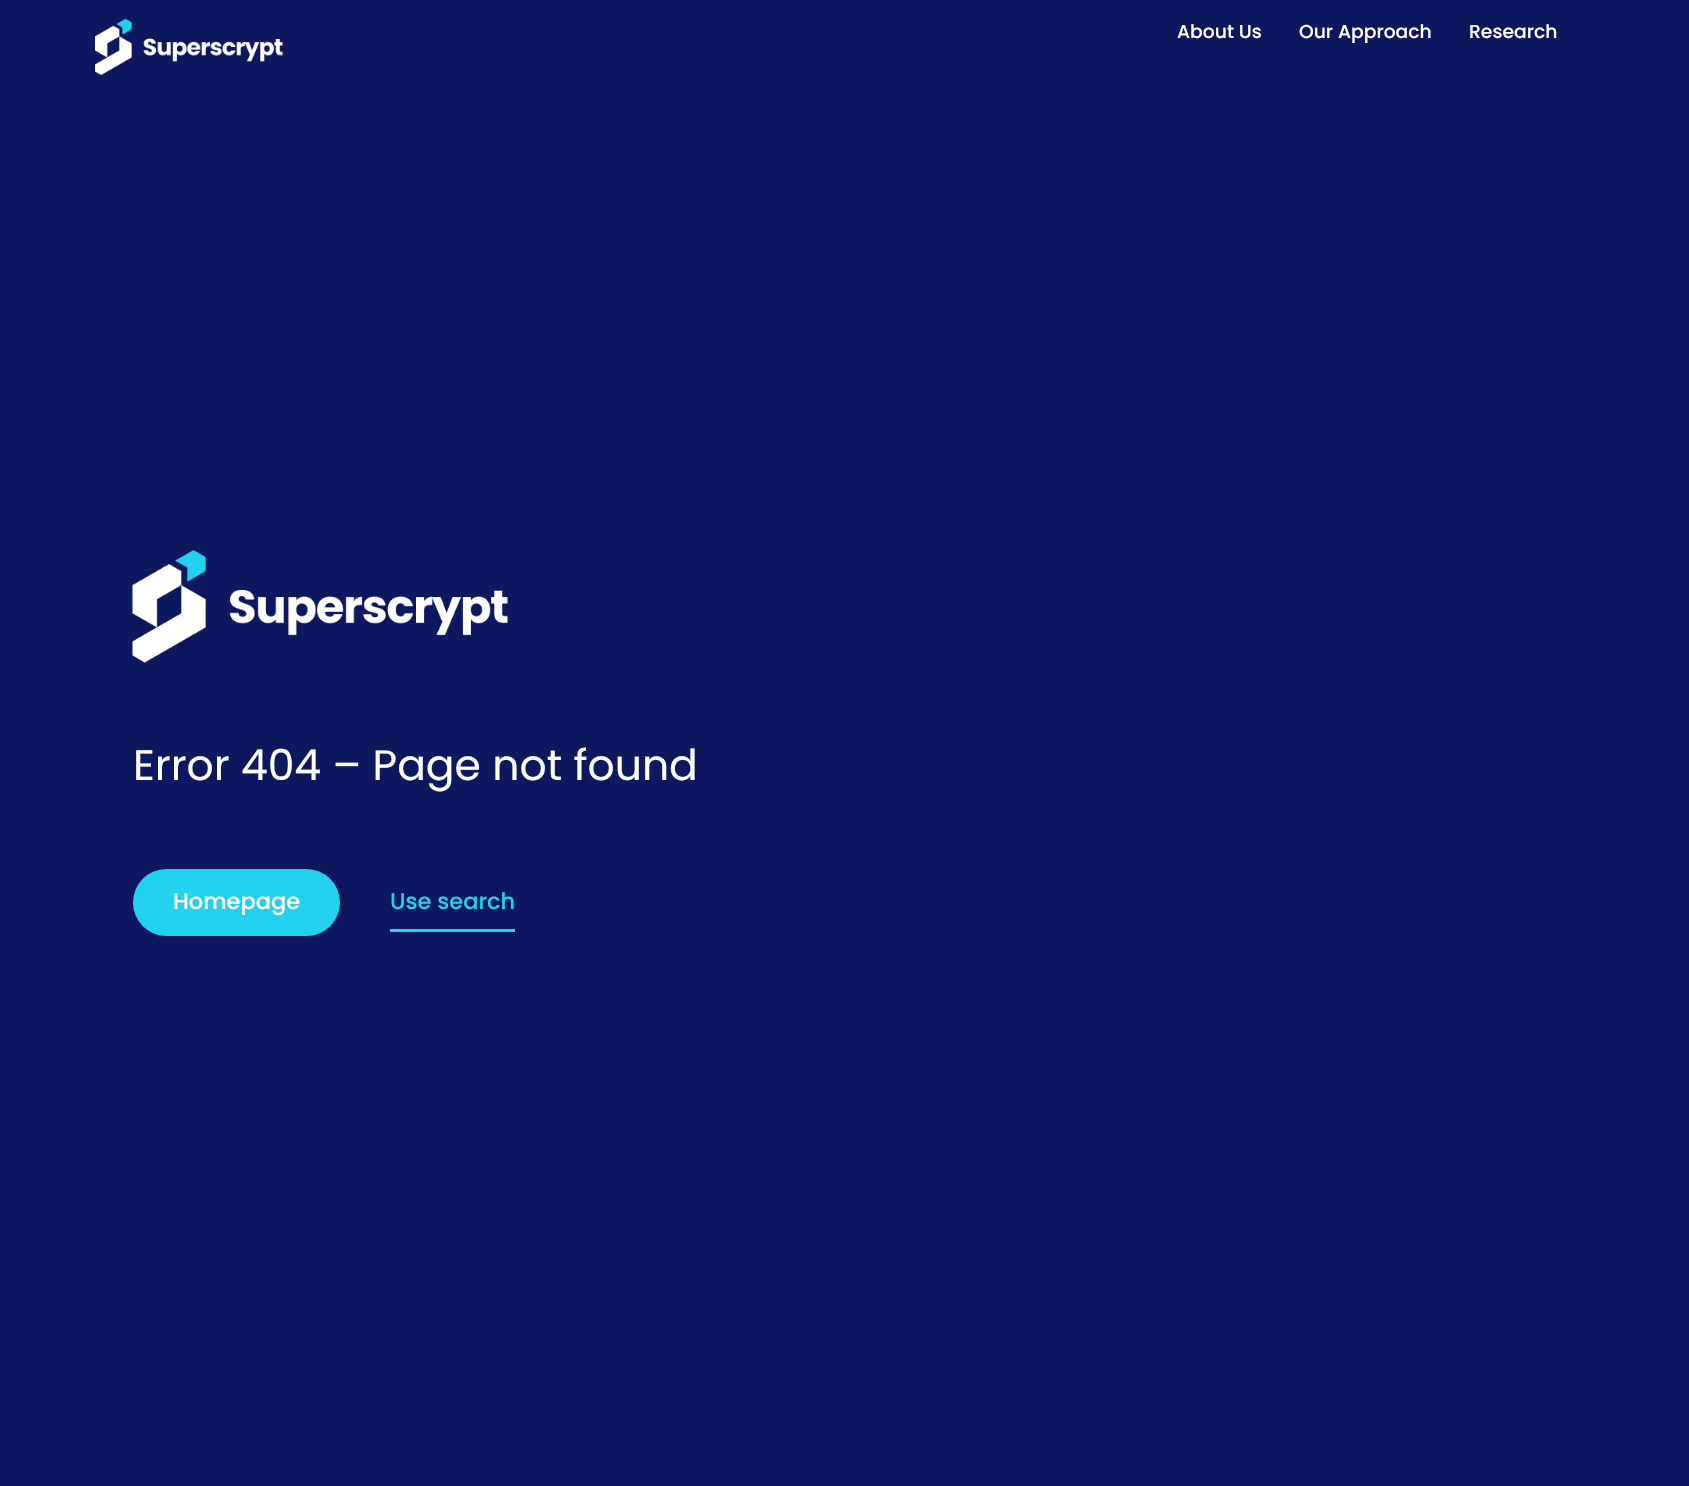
void draw(SkCanvas* canvas) {
    SkPaint paint;
    paint.setAntiAlias(true);
    canvas->clear(0xFF0E185F);
    canvas->drawImageRect(SkImages::DeferredFromEncodedData(SkData::MakeFromFileName("img1.png")), SkRect::MakeXYWH(95, 18, 188, 57), SkSamplingOptions());
    SkFont font1(fontMgr->matchFamilyStyle("Poppins", SkFontStyle(500, SkFontStyle::kNormal_Width, SkFontStyle::kUpright_Slant)), 18.75f);
    font1.setSubpixel(true);
    paint.setColor(0xFFFFFFFF);
    canvas->drawString("About Us", 1177, 38, font1, paint);
    canvas->drawString("Our Approach", 1299, 38, font1, paint);
    canvas->drawString("Research", 1469, 38, font1, paint);
    canvas->drawImageRect(SkImages::DeferredFromEncodedData(SkData::MakeFromFileName("img2.png")), SkRect::MakeXYWH(132, 550, 376, 113), SkSamplingOptions());
    SkFont font2(fontMgr->matchFamilyStyle("Poppins", SkFontStyle::Normal()), 42.5f);
    font2.setSubpixel(true);
    canvas->drawString("Error 404 – Page not found", 133, 780, font2, paint);
    paint.setColor(0xFF22D1EE);
    canvas->drawRoundRect(SkRect::MakeXYWH(133, 869, 207, 67), 33.5f, 33.5f, paint);
    SkFont font3(fontMgr->matchFamilyStyle("Poppins", SkFontStyle(500, SkFontStyle::kNormal_Width, SkFontStyle::kUpright_Slant)), 22.5f);
    font3.setSubpixel(true);
    paint.setColor(0xFFFFFFFF);
    canvas->drawString("Homepage", 173, 909, font3, paint);
    paint.setColor(0xFF22D1EE);
    canvas->drawRect(SkRect::MakeXYWH(390, 929, 125, 3), paint);
    canvas->drawString("Use search", 390, 909, font3, paint);
}
